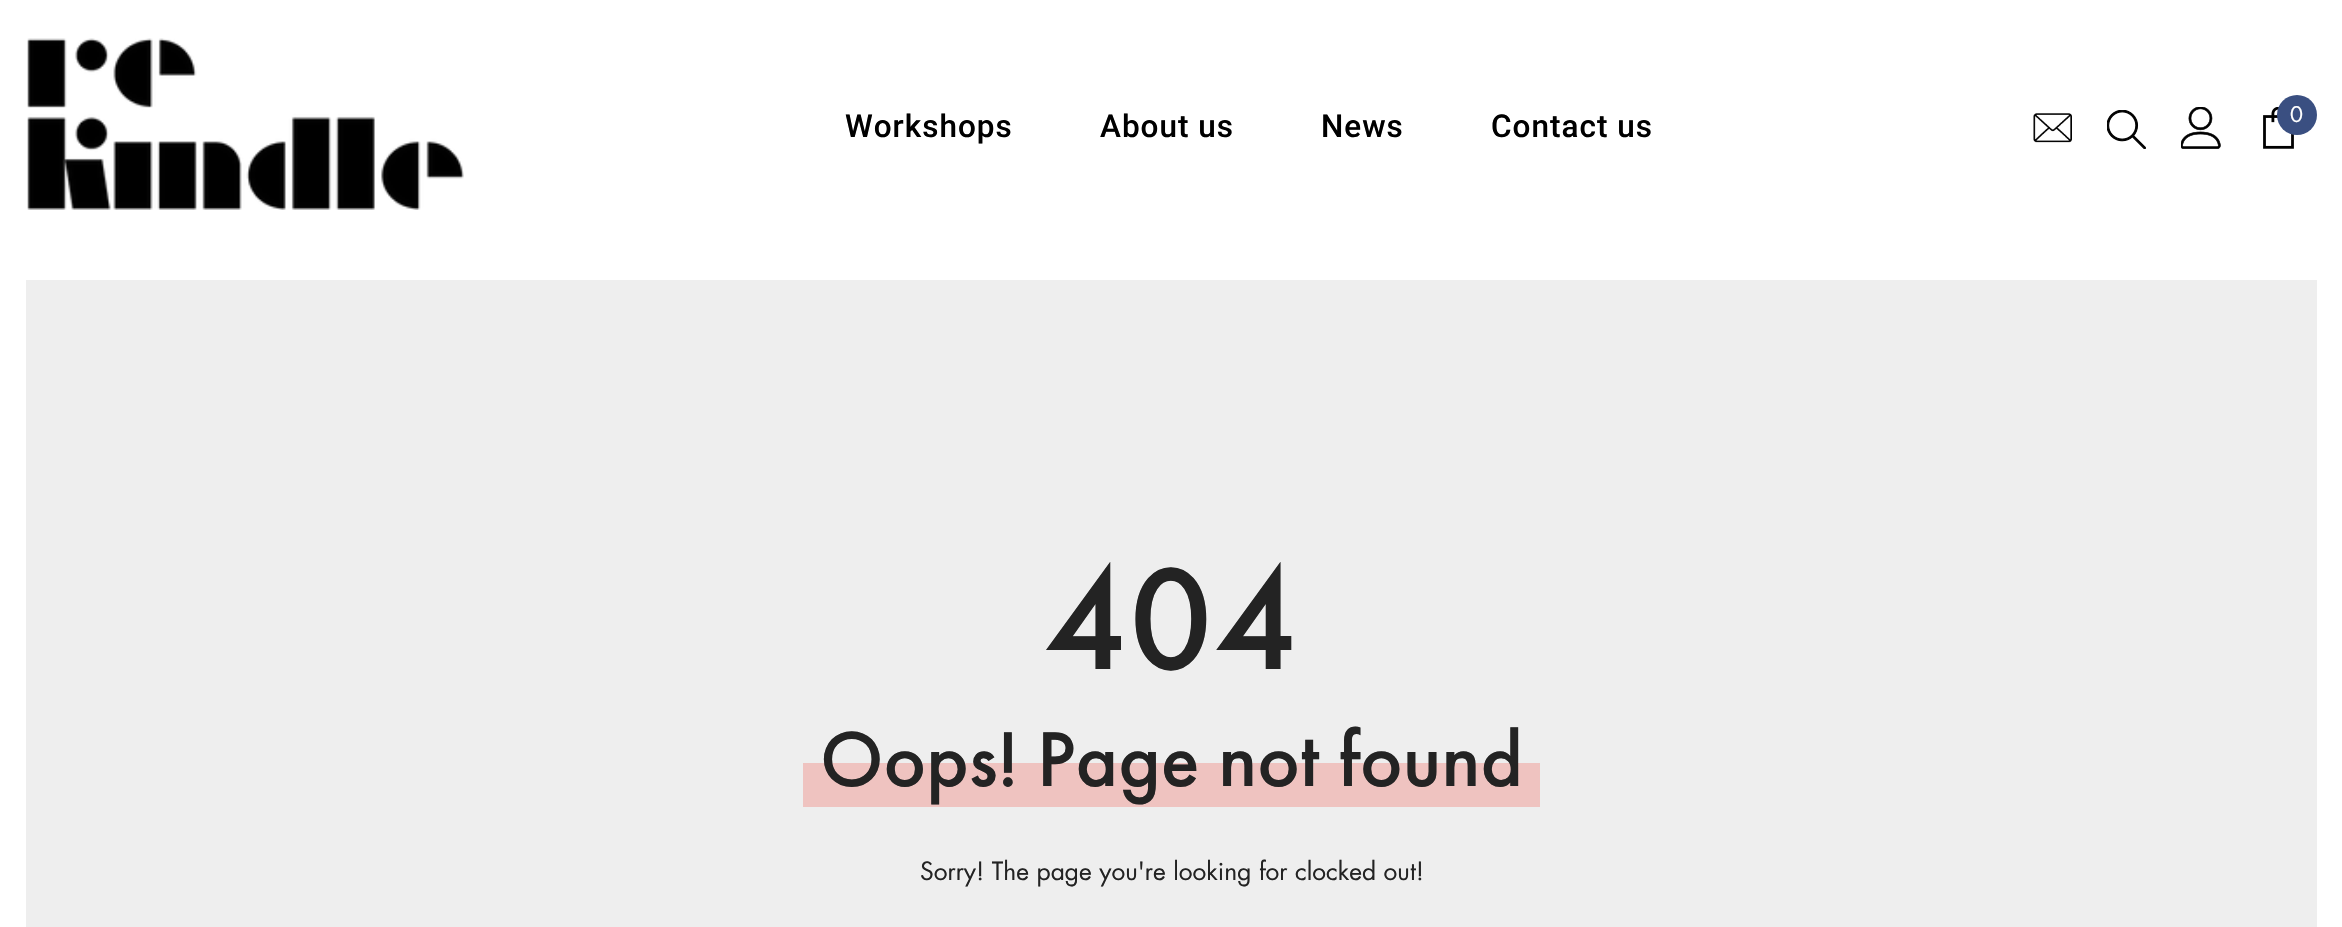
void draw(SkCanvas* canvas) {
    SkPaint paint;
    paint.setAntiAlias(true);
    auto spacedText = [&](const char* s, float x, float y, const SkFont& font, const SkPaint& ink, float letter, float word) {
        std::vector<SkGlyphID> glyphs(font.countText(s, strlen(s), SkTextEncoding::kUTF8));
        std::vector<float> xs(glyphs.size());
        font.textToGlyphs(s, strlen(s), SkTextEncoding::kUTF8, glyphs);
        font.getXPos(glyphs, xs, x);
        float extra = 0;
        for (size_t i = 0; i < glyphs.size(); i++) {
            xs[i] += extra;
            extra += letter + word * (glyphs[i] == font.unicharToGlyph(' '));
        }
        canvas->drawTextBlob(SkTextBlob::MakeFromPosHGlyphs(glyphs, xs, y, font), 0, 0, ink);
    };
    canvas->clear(0xFFFFFFFF);
    canvas->drawImageRect(SkImages::DeferredFromEncodedData(SkData::MakeFromFileName("img1.png")), SkRect::MakeXYWH(27, 38, 437, 172), SkSamplingOptions());
    SkFont font1(fontMgr->matchFamilyStyle("Roboto", SkFontStyle(500, SkFontStyle::kNormal_Width, SkFontStyle::kUpright_Slant)), 31.5f);
    font1.setSubpixel(true);
    paint.setColor(0xFF000000);
    spacedText("Workshops", 845, 137, font1, paint, 1, 0);
    spacedText("About us", 1100, 137, font1, paint, 1, 0);
    spacedText("News", 1321, 137, font1, paint, 1, 0);
    spacedText("Contact us", 1491, 137, font1, paint, 1, 0);
    canvas->drawImageRect(SkImages::DeferredFromEncodedData(SkData::MakeFromFileName("img2.png")), SkRect::MakeXYWH(2033, 113, 39, 30), SkSamplingOptions());
    canvas->drawImageRect(SkImages::DeferredFromEncodedData(SkData::MakeFromFileName("img3.png")), SkRect::MakeXYWH(2107, 110, 39, 39), SkSamplingOptions());
    canvas->drawImageRect(SkImages::DeferredFromEncodedData(SkData::MakeFromFileName("img4.png")), SkRect::MakeXYWH(2181, 107, 40, 42), SkSamplingOptions());
    canvas->drawImageRect(SkImages::DeferredFromEncodedData(SkData::MakeFromFileName("img5.png")), SkRect::MakeXYWH(2263, 107, 31, 42), SkSamplingOptions());
    paint.setColor(0xFF3A4F81);
    canvas->drawCircle(2297, 115, 20, paint);
    SkFont font2(fontMgr->matchFamilyStyle("Futura", SkFontStyle::Normal()), 21);
    font2.setSubpixel(true);
    paint.setColor(0xFFFFFFFF);
    canvas->drawString("0", 2290, 122, font2, paint);
    paint.setColor(0xFFEEEEEE);
    canvas->drawRect(SkRect::MakeXYWH(26, 280, 2291, 647), paint);
    SkFont font3(fontMgr->matchFamilyStyle("Futura PT", SkFontStyle(500, SkFontStyle::kNormal_Width, SkFontStyle::kUpright_Slant)), 150);
    font3.setSubpixel(true);
    paint.setColor(0xFF232323);
    canvas->drawString("404", 1043, 669, font3, paint);
    paint.setColor(0xFFEFC3C0);
    canvas->drawRect(SkRect::MakeXYWH(803, 763, 737, 44), paint);
    SkFont font4(fontMgr->matchFamilyStyle("Futura PT", SkFontStyle(500, SkFontStyle::kNormal_Width, SkFontStyle::kUpright_Slant)), 80.5f);
    font4.setSubpixel(true);
    paint.setColor(0xFF232323);
    canvas->drawString("Oops! Page not found", 820, 786, font4, paint);
    SkFont font5(fontMgr->matchFamilyStyle("Futura", SkFontStyle::Normal()), 24.5f);
    font5.setSubpixel(true);
    canvas->drawString("Sorry! The page you're looking for clocked out!", 920, 880, font5, paint);
}
